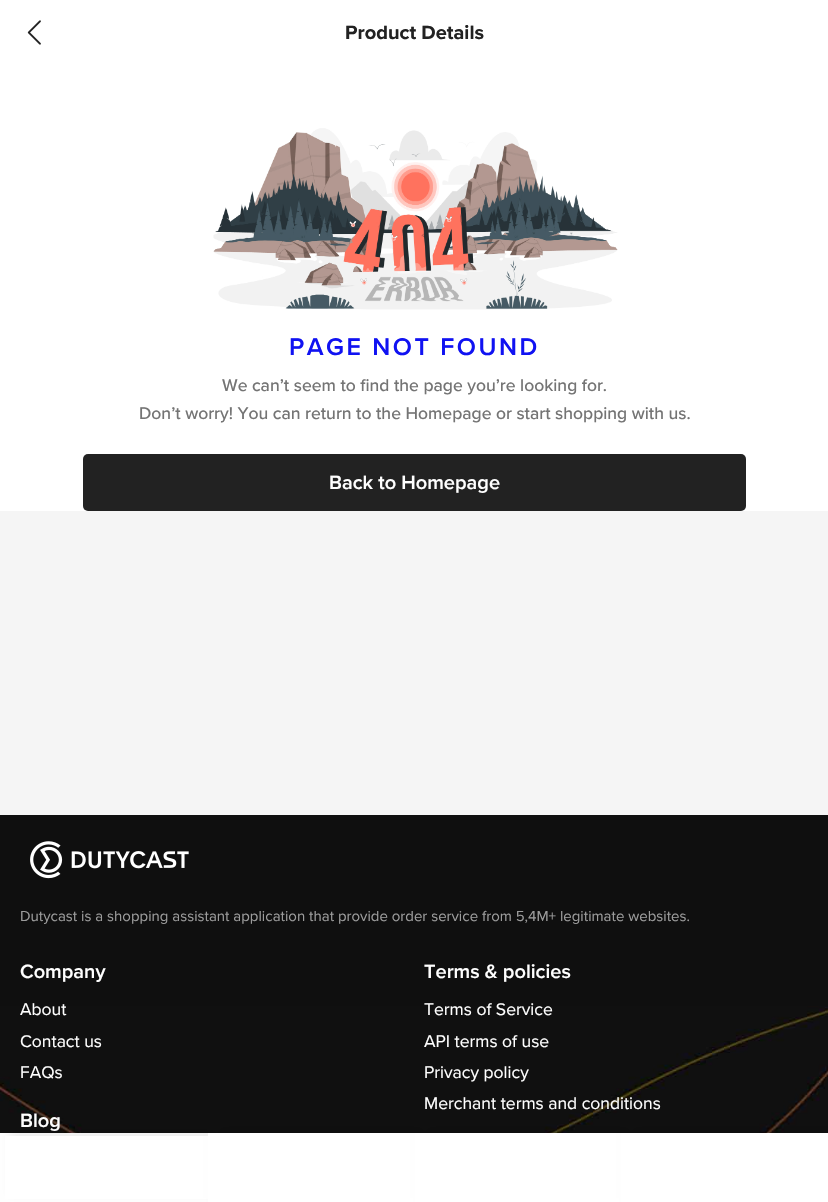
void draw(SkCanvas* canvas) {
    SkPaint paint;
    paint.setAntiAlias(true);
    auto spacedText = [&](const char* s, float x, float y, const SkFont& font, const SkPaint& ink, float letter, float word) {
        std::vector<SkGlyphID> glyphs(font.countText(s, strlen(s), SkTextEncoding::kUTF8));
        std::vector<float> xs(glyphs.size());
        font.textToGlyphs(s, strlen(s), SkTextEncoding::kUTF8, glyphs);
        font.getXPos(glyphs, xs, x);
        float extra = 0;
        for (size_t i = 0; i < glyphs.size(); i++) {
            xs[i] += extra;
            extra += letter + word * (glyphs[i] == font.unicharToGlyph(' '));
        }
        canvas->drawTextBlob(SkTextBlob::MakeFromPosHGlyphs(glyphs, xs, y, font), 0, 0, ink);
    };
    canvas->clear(0xFFFFFFFF);
    canvas->drawImageRect(SkImages::DeferredFromEncodedData(SkData::MakeFromFileName("img1.png")), SkRect::MakeXYWH(27, 20, 14, 25), SkSamplingOptions());
    SkFont font1(fontMgr->matchFamilyStyle("Proxima Nova", SkFontStyle::Bold()), 20);
    font1.setSubpixel(true);
    paint.setColor(0xFF222222);
    canvas->drawString("Product Details", 345, 39, font1, paint);
    paint.setColor(0xFFF5F5F5);
    canvas->drawRect(SkRect::MakeXYWH(0, 511, 828, 304), paint);
    canvas->drawImageRect(SkImages::DeferredFromEncodedData(SkData::MakeFromFileName("img2.png")), SkRect::MakeXYWH(213, 128, 405, 182), SkSamplingOptions());
    SkFont font2(fontMgr->matchFamilyStyle("Proxima Nova", SkFontStyle(600, SkFontStyle::kNormal_Width, SkFontStyle::kUpright_Slant)), 25);
    font2.setSubpixel(true);
    paint.setColor(0xFF1012F2);
    spacedText("PAGE NOT FOUND", 289, 355, font2, paint, 2.5f, 0);
    SkFont font3(fontMgr->matchFamilyStyle("Proxima Nova", SkFontStyle(500, SkFontStyle::kNormal_Width, SkFontStyle::kUpright_Slant)), 17.5f);
    font3.setSubpixel(true);
    paint.setColor(0xFF747474);
    canvas->drawString("We can’t seem to find the page you’re looking for.", 222, 391, font3, paint);
    canvas->drawString("Don’t worry! You can return to the Homepage or start shopping with us.", 139, 419, font3, paint);
    paint.setColor(0xFF222222);
    canvas->drawRoundRect(SkRect::MakeXYWH(83, 454, 663, 57), 5, 5, paint);
    SkFont font4(fontMgr->matchFamilyStyle("Proxima Nova", SkFontStyle(600, SkFontStyle::kNormal_Width, SkFontStyle::kUpright_Slant)), 20);
    font4.setSubpixel(true);
    paint.setColor(0xFFFFFFFF);
    canvas->drawString("Back to Homepage", 329, 489, font4, paint);
    paint.setColor(0xFF0F0F0F);
    canvas->drawRect(SkRect::MakeXYWH(0, 815, 828, 191), paint);
    canvas->drawImageRect(SkImages::DeferredFromEncodedData(SkData::MakeFromFileName("img3.png")), SkRect::MakeXYWH(0, 1006, 828, 127), SkSamplingOptions());
    canvas->drawImageRect(SkImages::DeferredFromEncodedData(SkData::MakeFromFileName("img4.png")), SkRect::MakeXYWH(30, 841, 159, 38), SkSamplingOptions());
    SkFont font5(fontMgr->matchFamilyStyle("Proxima Nova", SkFontStyle::Normal()), 15);
    font5.setSubpixel(true);
    paint.setColor(0xFF9C9C9C);
    canvas->drawString("Dutycast is a shopping assistant application that provide order service from 5,4M+ legitimate websites.", 20, 921, font5, paint);
    paint.setColor(0xFFFFFFFF);
    canvas->drawString("Company", 20, 978, font4, paint);
    SkFont font6(fontMgr->matchFamilyStyle("Proxima Nova", SkFontStyle::Normal()), 17.5f);
    font6.setSubpixel(true);
    canvas->drawString("About", 20, 1015, font6, paint);
    canvas->drawString("Contact us", 20, 1047, font6, paint);
    canvas->drawString("FAQs", 20, 1078, font6, paint);
    canvas->drawString("Blog", 20, 1127, font4, paint);
    canvas->drawString("Terms & policies", 424, 978, font4, paint);
    canvas->drawString("Terms of Service", 424, 1015, font6, paint);
    canvas->drawString("API terms of use", 424, 1047, font6, paint);
    canvas->drawString("Privacy policy", 424, 1078, font6, paint);
    canvas->drawString("Merchant terms and conditions", 424, 1109, font6, paint);
    paint.setColor(0x12000000);
    paint.setMaskFilter(SkMaskFilter::MakeBlur(kNormal_SkBlurStyle, 5));
    canvas->drawRect(SkRect::MakeXYWH(10, 1131, 208, 63), paint);
    paint.setMaskFilter(nullptr);
    paint.setColor(0xFFFFFFFF);
    canvas->drawRect(SkRect::MakeXYWH(5, 1136, 203, 63), paint);
    paint.setColor(0x12000000);
    paint.setMaskFilter(SkMaskFilter::MakeBlur(kNormal_SkBlurStyle, 5));
    canvas->drawRect(SkRect::MakeXYWH(218, 1128, 207, 70), paint);
    paint.setMaskFilter(nullptr);
    paint.setColor(0xFFFFFFFF);
    canvas->drawRect(SkRect::MakeXYWH(208, 1133, 207, 69), paint);
    paint.setColor(0x12000000);
    paint.setMaskFilter(SkMaskFilter::MakeBlur(kNormal_SkBlurStyle, 5));
    canvas->drawRect(SkRect::MakeXYWH(425, 1128, 206, 70), paint);
    paint.setMaskFilter(nullptr);
    paint.setColor(0xFFFFFFFF);
    canvas->drawRect(SkRect::MakeXYWH(415, 1133, 206, 69), paint);
    paint.setColor(0x12000000);
    paint.setMaskFilter(SkMaskFilter::MakeBlur(kNormal_SkBlurStyle, 5));
    canvas->drawRect(SkRect::MakeXYWH(631, 1128, 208, 70), paint);
    paint.setMaskFilter(nullptr);
    paint.setColor(0xFFFFFFFF);
    canvas->drawRect(SkRect::MakeXYWH(621, 1133, 207, 69), paint);
}
